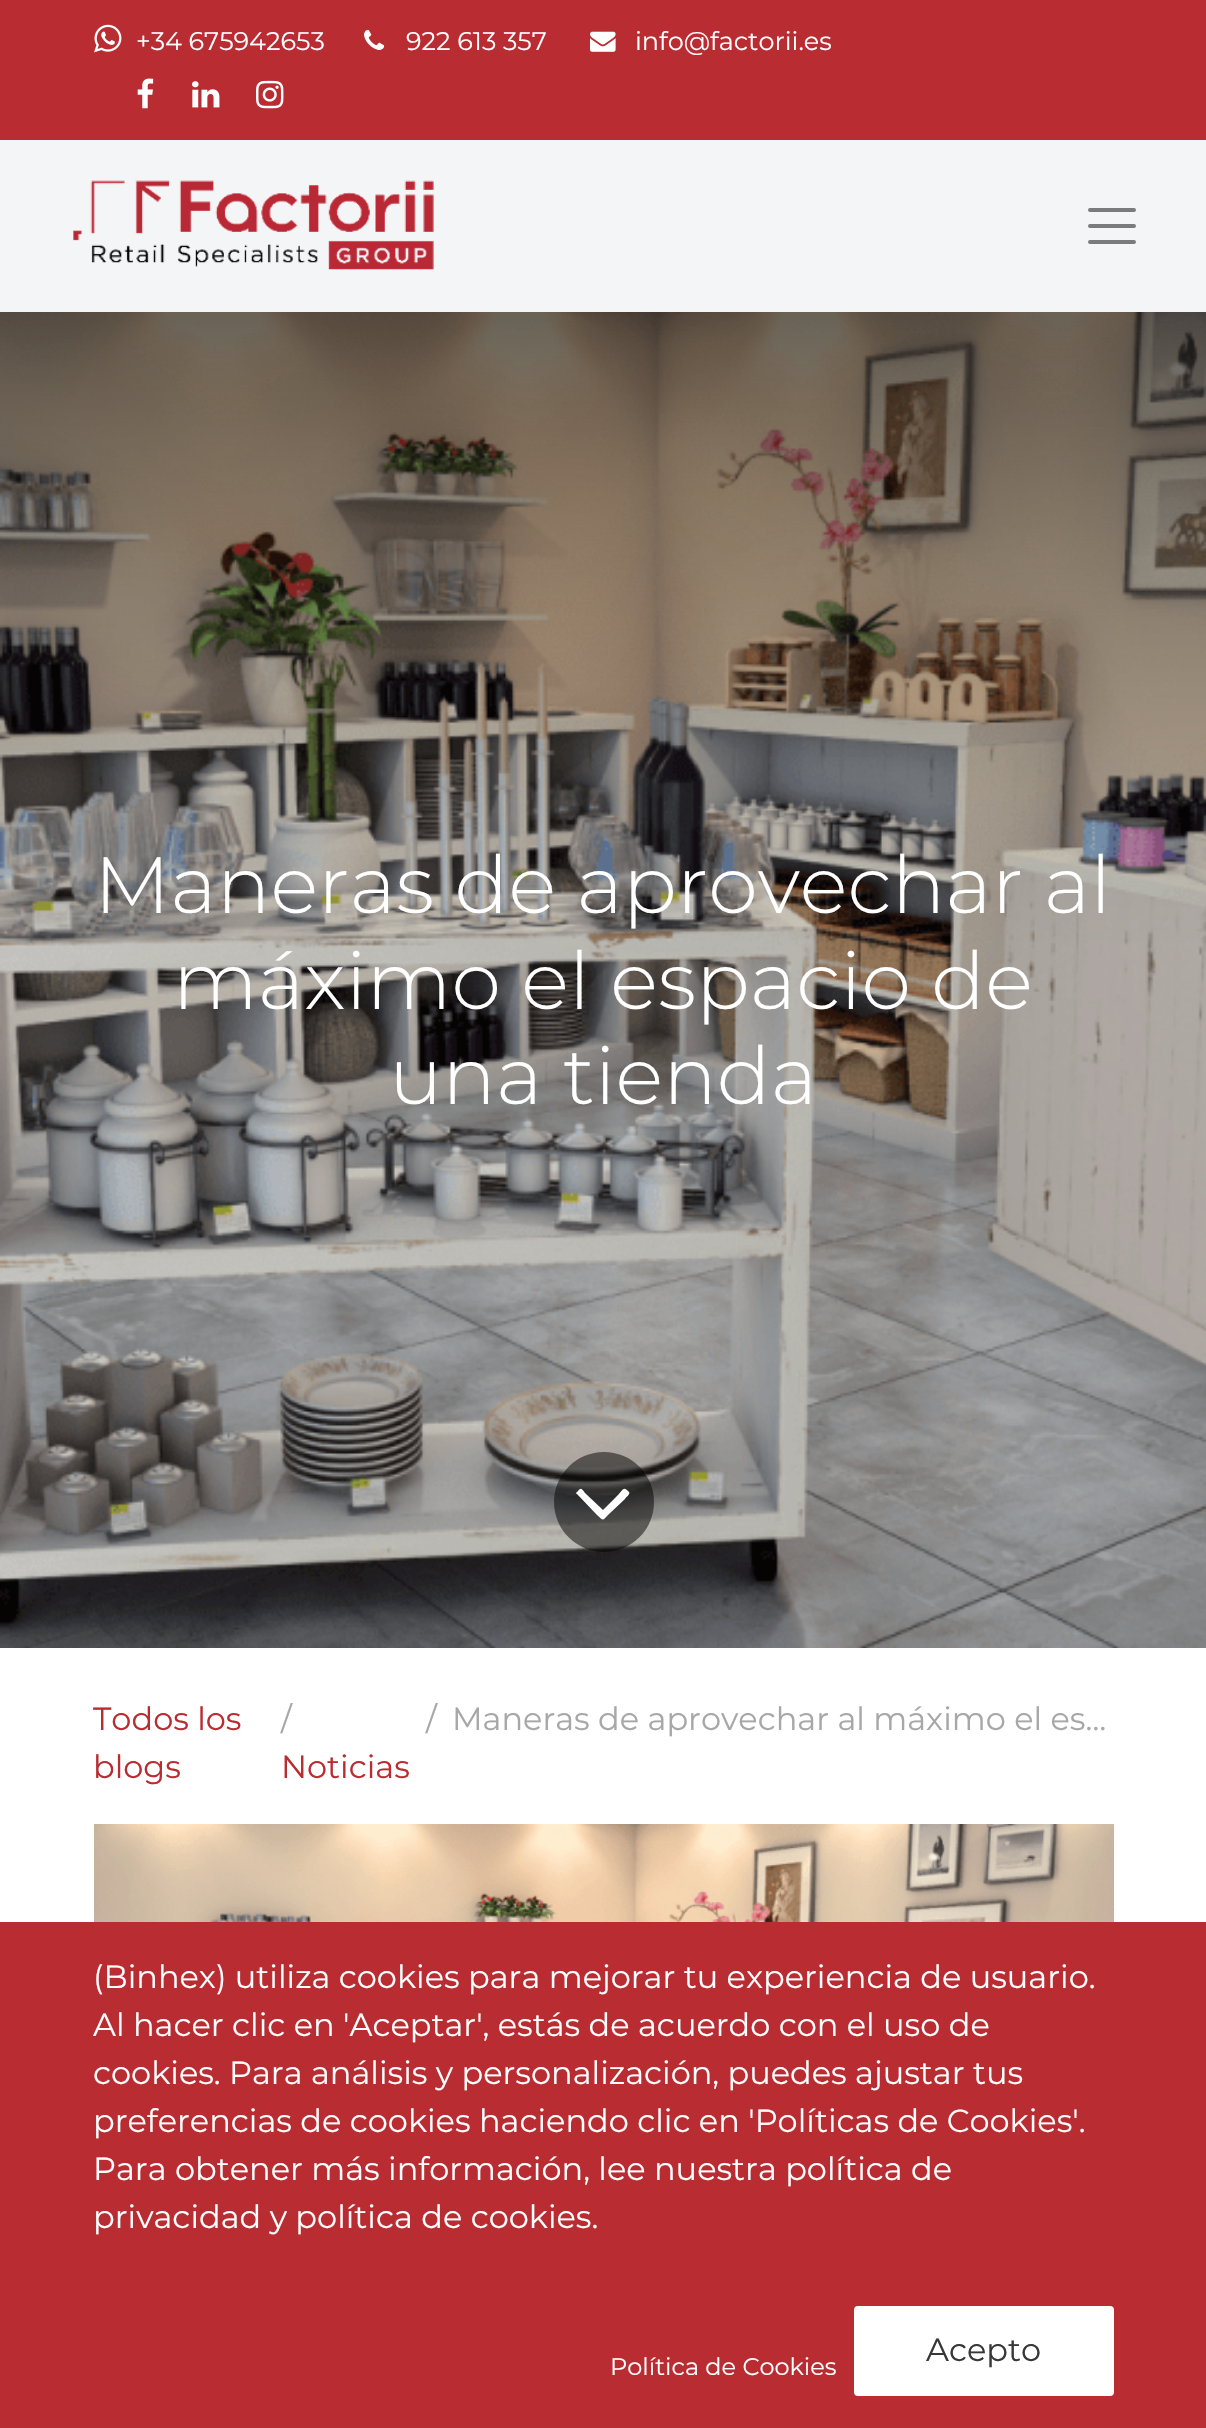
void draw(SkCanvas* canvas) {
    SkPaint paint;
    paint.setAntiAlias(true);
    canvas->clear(0xFFFFFFFF);
    paint.setColor(0xFFB92C32);
    canvas->drawRect(SkRect::MakeXYWH(0, 0, 1206, 140), paint);
    canvas->drawImageRect(SkImages::DeferredFromEncodedData(SkData::MakeFromFileName("img1.png")), SkRect::MakeXYWH(94, 24, 28, 29), SkSamplingOptions());
    SkFont font1(fontMgr->matchFamilyStyle("Montserrat", SkFontStyle::Normal()), 25.5f);
    font1.setSubpixel(true);
    paint.setColor(0xFFFFFFFF);
    canvas->drawString("+34 675942653", 136, 50, font1, paint);
    canvas->drawImageRect(SkImages::DeferredFromEncodedData(SkData::MakeFromFileName("img2.png")), SkRect::MakeXYWH(364, 29, 21, 21), SkSamplingOptions());
    canvas->drawString("922 613 357", 406, 50, font1, paint);
    canvas->drawImageRect(SkImages::DeferredFromEncodedData(SkData::MakeFromFileName("img3.png")), SkRect::MakeXYWH(590, 31, 26, 21), SkSamplingOptions());
    canvas->drawString("info@factorii.es", 635, 50, font1, paint);
    canvas->drawImageRect(SkImages::DeferredFromEncodedData(SkData::MakeFromFileName("img4.png")), SkRect::MakeXYWH(137, 78, 17, 31), SkSamplingOptions());
    canvas->drawImageRect(SkImages::DeferredFromEncodedData(SkData::MakeFromFileName("img5.png")), SkRect::MakeXYWH(192, 81, 28, 27), SkSamplingOptions());
    canvas->drawImageRect(SkImages::DeferredFromEncodedData(SkData::MakeFromFileName("img6.png")), SkRect::MakeXYWH(256, 80, 28, 29), SkSamplingOptions());
    paint.setColor(0xFFF4F5F6);
    canvas->drawRect(SkRect::MakeXYWH(0, 140, 1206, 172), paint);
    canvas->drawImageRect(SkImages::DeferredFromEncodedData(SkData::MakeFromFileName("img7.png")), SkRect::MakeXYWH(73, 180, 361, 90), SkSamplingOptions());
    paint.setStyle(SkPaint::kStroke_Style);
    paint.setStrokeWidth(4);
    paint.setStrokeCap(SkPaint::kRound_Cap);
    paint.setColor(0xFF7A7B7B);
    canvas->drawPath(SkPathBuilder().moveTo(1090, 210).lineTo(1134, 210).moveTo(1090, 226).lineTo(1134, 226).moveTo(1090, 242).lineTo(1134, 242).detach(), paint);
    canvas->drawImageRect(SkImages::DeferredFromEncodedData(SkData::MakeFromFileName("img8.png")), SkRect::MakeXYWH(0, 312, 1206, 1336), SkSamplingOptions());
    SkFont font2(fontMgr->matchFamilyStyle("Montserrat", SkFontStyle(300, SkFontStyle::kNormal_Width, SkFontStyle::kUpright_Slant)), 79.75f);
    font2.setSubpixel(true);
    paint.setStyle(SkPaint::kFill_Style);
    paint.setColor(0xFFFFFFFF);
    canvas->drawString("Maneras de aprovechar al", 94, 913, font2, paint);
    canvas->drawString("máximo el espacio de", 173, 1009, font2, paint);
    canvas->drawString("una tienda", 389, 1104, font2, paint);
    paint.setColor(0x80000000);
    canvas->drawCircle(604, 1502, 50, paint);
    paint.setColor(0xFFFFFFFF);
    canvas->drawPath(SkPathBuilder().moveTo(629, 1492).cubicTo(631, 1494, 625, 1498, 625, 1499).lineTo(608, 1515).cubicTo(602, 1521, 604, 1521, 597, 1515).lineTo(577, 1494).cubicTo(575, 1493, 577, 1492, 578, 1491).cubicTo(581, 1487, 582, 1489, 585, 1493).lineTo(603, 1510).lineTo(617, 1496).cubicTo(624, 1489, 623, 1486, 629, 1492).close().detach(), paint);
    SkFont font3(fontMgr->matchFamilyStyle("Montserrat", SkFontStyle::Normal()), 32);
    font3.setSubpixel(true);
    paint.setColor(0xFFB92C32);
    canvas->drawString("Todos los", 93, 1730, font3, paint);
    canvas->drawString("blogs", 93, 1778, font3, paint);
    paint.setColor(0xFFA7A7A7);
    canvas->drawString("/", 281, 1730, font3, paint);
    paint.setColor(0xFFB92C32);
    canvas->drawString("Noticias", 281, 1778, font3, paint);
    paint.setColor(0xFFA7A7A7);
    canvas->drawString("/", 426, 1730, font3, paint);
    canvas->drawString("Maneras de aprovechar al máximo el es…", 452, 1730, font3, paint);
    canvas->drawImageRect(SkImages::DeferredFromEncodedData(SkData::MakeFromFileName("img9.png")), SkRect::MakeXYWH(94, 1824, 1020, 98), SkSamplingOptions());
    paint.setColor(0xFFB92C32);
    canvas->drawRect(SkRect::MakeXYWH(0, 1922, 1206, 506), paint);
    paint.setColor(0xFFFFFFFF);
    canvas->drawString("(Binhex) utiliza cookies para mejorar tu experiencia de usuario.", 93, 1988, font3, paint);
    canvas->drawString("Al hacer clic en 'Aceptar', estás de acuerdo con el uso de", 93, 2036, font3, paint);
    canvas->drawString("cookies. Para análisis y personalización, puedes ajustar tus", 93, 2084, font3, paint);
    canvas->drawString("preferencias de cookies haciendo clic en 'Políticas de Cookies'.", 93, 2132, font3, paint);
    canvas->drawString("Para obtener más información, lee nuestra política de", 93, 2180, font3, paint);
    canvas->drawString("privacidad y política de cookies.", 93, 2228, font3, paint);
    SkFont font4(fontMgr->matchFamilyStyle("Montserrat", SkFontStyle::Normal()), 24);
    font4.setSubpixel(true);
    canvas->drawString("Política de Cookies", 610, 2375, font4, paint);
    canvas->drawRoundRect(SkRect::MakeXYWH(855, 2307, 258, 88), 3, 3, paint);
    paint.setStyle(SkPaint::kStroke_Style);
    paint.setStrokeWidth(2);
    paint.setStrokeCap(SkPaint::kButt_Cap);
    canvas->drawRoundRect(SkRect::MakeXYWH(855, 2307, 258, 88), 3, 3, paint);
    paint.setStyle(SkPaint::kFill_Style);
    paint.setColor(0xFF383838);
    canvas->drawString("Acepto", 926, 2361, font3, paint);
}
